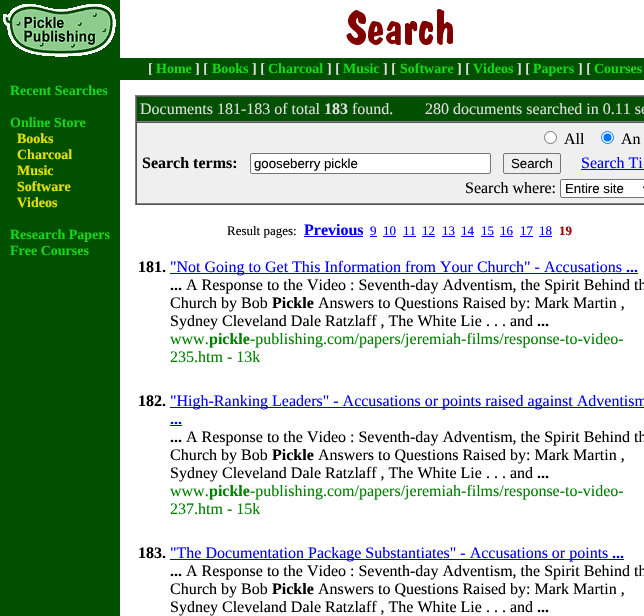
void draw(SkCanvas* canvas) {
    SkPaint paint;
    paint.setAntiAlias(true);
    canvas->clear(0xFFFFFFFF);
    paint.setColor(0xFF005000);
    canvas->drawRect(SkRect::MakeXYWH(0, 0, 120, 616), paint);
    canvas->drawImageRect(SkImages::DeferredFromEncodedData(SkData::MakeFromFileName("img1.png")), SkRect::MakeXYWH(3, 4, 113, 53), SkSamplingOptions());
    canvas->drawImageRect(SkImages::DeferredFromEncodedData(SkData::MakeFromFileName("img2.png")), SkRect::MakeXYWH(346, 9, 107, 36), SkSamplingOptions());
    canvas->drawRect(SkRect::MakeXYWH(120, 58, 524, 22), paint);
    SkFont font1(fontMgr->matchFamilyStyle("Liberation Serif", SkFontStyle::Bold()), 14);
    font1.setSubpixel(true);
    paint.setColor(0xFFDFDFDF);
    canvas->drawString("[", 148, 73, font1, paint);
    paint.setColor(0xFF18D718);
    canvas->drawString("Home", 156, 73, font1, paint);
    paint.setColor(0xFFDFDFDF);
    canvas->drawString("] [", 195, 73, font1, paint);
    paint.setColor(0xFF18D718);
    canvas->drawString("Books", 212, 73, font1, paint);
    paint.setColor(0xFFDFDFDF);
    canvas->drawString("] [", 252, 73, font1, paint);
    paint.setColor(0xFF18D718);
    canvas->drawString("Charcoal", 268, 73, font1, paint);
    paint.setColor(0xFFDFDFDF);
    canvas->drawString("] [", 327, 73, font1, paint);
    paint.setColor(0xFF18D718);
    canvas->drawString("Music", 343, 73, font1, paint);
    paint.setColor(0xFFDFDFDF);
    canvas->drawString("] [", 383, 73, font1, paint);
    paint.setColor(0xFF18D718);
    canvas->drawString("Software", 400, 73, font1, paint);
    paint.setColor(0xFFDFDFDF);
    canvas->drawString("] [", 457, 73, font1, paint);
    paint.setColor(0xFF18D718);
    canvas->drawString("Videos", 473, 73, font1, paint);
    paint.setColor(0xFFDFDFDF);
    canvas->drawString("] [", 517, 73, font1, paint);
    paint.setColor(0xFF18D718);
    canvas->drawString("Papers", 533, 73, font1, paint);
    paint.setColor(0xFFDFDFDF);
    canvas->drawString("] [", 578, 73, font1, paint);
    paint.setColor(0xFF18D718);
    canvas->drawString("Courses", 594, 73, font1, paint);
    canvas->drawString("Recent Searches", 10, 95, font1, paint);
    canvas->drawString("Online Store", 10, 127, font1, paint);
    paint.setColor(0xFFE1E100);
    canvas->drawString("Books", 17, 143, font1, paint);
    canvas->drawString("Charcoal", 17, 159, font1, paint);
    canvas->drawString("Music", 17, 175, font1, paint);
    canvas->drawString("Software", 17, 191, font1, paint);
    canvas->drawString("Videos", 17, 207, font1, paint);
    paint.setColor(0xFF18D718);
    canvas->drawString("Research Papers", 10, 239, font1, paint);
    canvas->drawString("Free Courses", 10, 255, font1, paint);
    paint.setColor(0xFFEFEFEF);
    canvas->drawRect(SkRect::MakeXYWH(137, 123, 507, 80), paint);
    paint.setColor(0xFF808080);
    canvas->drawRect(SkRect::MakeXYWH(135, 95, 509, 1), paint);
    paint.setColor(0xFF555555);
    canvas->drawRect(SkRect::MakeXYWH(135, 204, 509, 1), paint);
    paint.setColor(0xFF808080);
    canvas->drawRect(SkRect::MakeXYWH(135, 95, 1, 110), paint);
    paint.setColor(0xFF005000);
    canvas->drawRect(SkRect::MakeXYWH(137, 97, 507, 24), paint);
    paint.setColor(0xFF555555);
    canvas->drawRect(SkRect::MakeXYWH(136, 96, 508, 1), paint);
    paint.setColor(0xFF808080);
    canvas->drawRect(SkRect::MakeXYWH(136, 121, 508, 1), paint);
    paint.setColor(0xFF555555);
    canvas->drawRect(SkRect::MakeXYWH(136, 96, 1, 26), paint);
    SkFont font2(fontMgr->matchFamilyStyle("Liberation Serif", SkFontStyle::Normal()), 16);
    font2.setSubpixel(true);
    paint.setColor(0xFFDFDFDF);
    canvas->drawString("Documents 181-183 of total", 140, 114, font2, paint);
    SkFont font3(fontMgr->matchFamilyStyle("Liberation Serif", SkFontStyle::Bold()), 16);
    font3.setSubpixel(true);
    canvas->drawString("183", 324, 114, font3, paint);
    canvas->drawString("found.", 352, 114, font2, paint);
    canvas->drawString("280 documents searched in 0.11 se", 425, 114, font2, paint);
    paint.setColor(0xFF555555);
    canvas->drawRect(SkRect::MakeXYWH(136, 122, 508, 1), paint);
    paint.setColor(0xFF808080);
    canvas->drawRect(SkRect::MakeXYWH(136, 203, 508, 1), paint);
    paint.setColor(0xFF555555);
    canvas->drawRect(SkRect::MakeXYWH(136, 122, 1, 82), paint);
    paint.setColor(0xFFFFFFFF);
    canvas->drawCircle(550.5f, 137.5f, 6, paint);
    paint.setStyle(SkPaint::kStroke_Style);
    paint.setStrokeWidth(1);
    paint.setColor(0xFF767676);
    canvas->drawCircle(550.5f, 137.5f, 6, paint);
    paint.setStyle(SkPaint::kFill_Style);
    paint.setColor(0xFF000000);
    canvas->drawString("All", 564, 144, font2, paint);
    paint.setColor(0xFFFFFFFF);
    canvas->drawCircle(607.5f, 137.5f, 6, paint);
    paint.setStyle(SkPaint::kStroke_Style);
    paint.setColor(0xFF0075FF);
    canvas->drawCircle(607.5f, 137.5f, 6, paint);
    paint.setStyle(SkPaint::kFill_Style);
    canvas->drawCircle(607.5f, 137.5f, 4, paint);
    paint.setColor(0xFF000000);
    canvas->drawString("An", 621, 144, font2, paint);
    canvas->drawString("Search terms:", 142, 168, font3, paint);
    paint.setColor(0xFFFFFFFF);
    canvas->drawRoundRect(SkRect::MakeXYWH(250.5f, 153.5f, 240, 20), 1.5f, 1.5f, paint);
    paint.setStyle(SkPaint::kStroke_Style);
    paint.setColor(0xFF767676);
    canvas->drawRoundRect(SkRect::MakeXYWH(250.5f, 153.5f, 240, 20), 1.5f, 1.5f, paint);
    SkFont font4(fontMgr->matchFamilyStyle("Liberation Sans", SkFontStyle::Normal()), 13.25f);
    font4.setSubpixel(true);
    paint.setStyle(SkPaint::kFill_Style);
    paint.setColor(0xFF000000);
    canvas->drawString("gooseberry pickle", 254, 168, font4, paint);
    paint.setStyle(SkPaint::kStroke_Style);
    paint.setColor(0xFF767676);
    canvas->drawRoundRect(SkRect::MakeXYWH(503.5f, 153.5f, 57, 20), 1.5f, 1.5f, paint);
    paint.setStyle(SkPaint::kFill_Style);
    paint.setColor(0xFF000000);
    canvas->drawString("Search", 511, 168, font4, paint);
    paint.setColor(0xFF0000FF);
    canvas->drawString("Search Ti", 581, 168, font2, paint);
    canvas->drawRect(SkRect::MakeXYWH(581, 169, 63, 1), paint);
    paint.setColor(0xFF000000);
    canvas->drawString("Search where:", 465, 193, font2, paint);
    paint.setColor(0xFFFFFFFF);
    canvas->drawRoundRect(SkRect::MakeXYWH(560.5f, 179.5f, 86, 18), 1.5f, 1.5f, paint);
    paint.setStyle(SkPaint::kStroke_Style);
    paint.setColor(0xFF767676);
    canvas->drawRoundRect(SkRect::MakeXYWH(560.5f, 179.5f, 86, 18), 1.5f, 1.5f, paint);
    paint.setStrokeWidth(2);
    paint.setColor(0xFF000000);
    canvas->drawPath(SkPathBuilder().moveTo(643.5f, 186.5f).lineTo(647.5f, 190.5f).lineTo(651.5f, 186.5f).detach(), paint);
    paint.setStyle(SkPaint::kFill_Style);
    canvas->drawString("Entire site", 565, 193, font4, paint);
    SkFont font5(fontMgr->matchFamilyStyle("Liberation Serif", SkFontStyle::Normal()), 13);
    font5.setSubpixel(true);
    canvas->drawString("Result pages:", 227, 235, font5, paint);
    paint.setColor(0xFF0000FF);
    canvas->drawString("Previous", 304, 235, font3, paint);
    canvas->drawRect(SkRect::MakeXYWH(304, 236, 59, 1), paint);
    canvas->drawString("9", 370, 235, font5, paint);
    canvas->drawRect(SkRect::MakeXYWH(370, 236, 7, 1), paint);
    canvas->drawString("10", 383, 235, font5, paint);
    canvas->drawRect(SkRect::MakeXYWH(383, 236, 13, 1), paint);
    canvas->drawString("11", 403, 235, font5, paint);
    canvas->drawRect(SkRect::MakeXYWH(403, 236, 13, 1), paint);
    canvas->drawString("12", 422, 235, font5, paint);
    canvas->drawRect(SkRect::MakeXYWH(422, 236, 13, 1), paint);
    canvas->drawString("13", 442, 235, font5, paint);
    canvas->drawRect(SkRect::MakeXYWH(442, 236, 13, 1), paint);
    canvas->drawString("14", 461, 235, font5, paint);
    canvas->drawRect(SkRect::MakeXYWH(461, 236, 13, 1), paint);
    canvas->drawString("15", 481, 235, font5, paint);
    canvas->drawRect(SkRect::MakeXYWH(481, 236, 13, 1), paint);
    canvas->drawString("16", 500, 235, font5, paint);
    canvas->drawRect(SkRect::MakeXYWH(500, 236, 13, 1), paint);
    canvas->drawString("17", 520, 235, font5, paint);
    canvas->drawRect(SkRect::MakeXYWH(520, 236, 13, 1), paint);
    canvas->drawString("18", 539, 235, font5, paint);
    canvas->drawRect(SkRect::MakeXYWH(539, 236, 13, 1), paint);
    SkFont font6(fontMgr->matchFamilyStyle("Liberation Serif", SkFontStyle::Bold()), 13);
    font6.setSubpixel(true);
    paint.setColor(0xFFA00000);
    canvas->drawString("19", 559, 235, font6, paint);
    paint.setColor(0xFF000000);
    canvas->drawString("181.", 138, 272, font3, paint);
    paint.setColor(0xFF0000FF);
    canvas->drawRect(SkRect::MakeXYWH(170, 273, 468, 1), paint);
    canvas->drawString("\"Not Going to Get This Information from Your Church\" - Accusations", 170, 272, font2, paint);
    canvas->drawString("...", 626, 272, font3, paint);
    paint.setColor(0xFF000000);
    canvas->drawString("...", 170, 290, font3, paint);
    canvas->drawString("A Response to the Video : Seventh-day Adventism, the Spirit Behind th", 186, 290, font2, paint);
    canvas->drawString("Church by Bob", 170, 308, font2, paint);
    canvas->drawString("Pickle", 272, 308, font3, paint);
    canvas->drawString("Answers to Questions Raised by: Mark Martin ,", 318, 308, font2, paint);
    canvas->drawString("Sydney Cleveland Dale Ratzlaff , The White Lie . . . and", 170, 326, font2, paint);
    canvas->drawString("...", 537, 326, font3, paint);
    paint.setColor(0xFF008000);
    canvas->drawString("www.", 170, 344, font2, paint);
    canvas->drawString("pickle", 209, 344, font3, paint);
    canvas->drawString("-publishing.com/papers/jeremiah-films/response-to-video-", 250, 344, font2, paint);
    canvas->drawString("235.htm - 13k", 170, 362, font2, paint);
    paint.setColor(0xFF000000);
    canvas->drawString("182.", 138, 406, font3, paint);
    paint.setColor(0xFF0000FF);
    canvas->drawRect(SkRect::MakeXYWH(170, 407, 474, 1), paint);
    canvas->drawString("\"High-Ranking Leaders\" - Accusations or points raised against Adventism", 170, 406, font2, paint);
    canvas->drawString("...", 170, 424, font3, paint);
    canvas->drawRect(SkRect::MakeXYWH(170, 425, 12, 1), paint);
    paint.setColor(0xFF000000);
    canvas->drawString("...", 170, 442, font3, paint);
    canvas->drawString("A Response to the Video : Seventh-day Adventism, the Spirit Behind th", 186, 442, font2, paint);
    canvas->drawString("Church by Bob", 170, 460, font2, paint);
    canvas->drawString("Pickle", 272, 460, font3, paint);
    canvas->drawString("Answers to Questions Raised by: Mark Martin ,", 318, 460, font2, paint);
    canvas->drawString("Sydney Cleveland Dale Ratzlaff , The White Lie . . . and", 170, 478, font2, paint);
    canvas->drawString("...", 537, 478, font3, paint);
    paint.setColor(0xFF008000);
    canvas->drawString("www.", 170, 496, font2, paint);
    canvas->drawString("pickle", 209, 496, font3, paint);
    canvas->drawString("-publishing.com/papers/jeremiah-films/response-to-video-", 250, 496, font2, paint);
    canvas->drawString("237.htm - 15k", 170, 514, font2, paint);
    paint.setColor(0xFF000000);
    canvas->drawString("183.", 138, 558, font3, paint);
    paint.setColor(0xFF0000FF);
    canvas->drawRect(SkRect::MakeXYWH(170, 559, 454, 1), paint);
    canvas->drawString("\"The Documentation Package Substantiates\" - Accusations or points", 170, 558, font2, paint);
    canvas->drawString("...", 612, 558, font3, paint);
    paint.setColor(0xFF000000);
    canvas->drawString("...", 170, 576, font3, paint);
    canvas->drawString("A Response to the Video : Seventh-day Adventism, the Spirit Behind th", 186, 576, font2, paint);
    canvas->drawString("Church by Bob", 170, 594, font2, paint);
    canvas->drawString("Pickle", 272, 594, font3, paint);
    canvas->drawString("Answers to Questions Raised by: Mark Martin ,", 318, 594, font2, paint);
    canvas->drawString("Sydney Cleveland Dale Ratzlaff , The White Lie . . . and", 170, 612, font2, paint);
    canvas->drawString("...", 537, 612, font3, paint);
}
